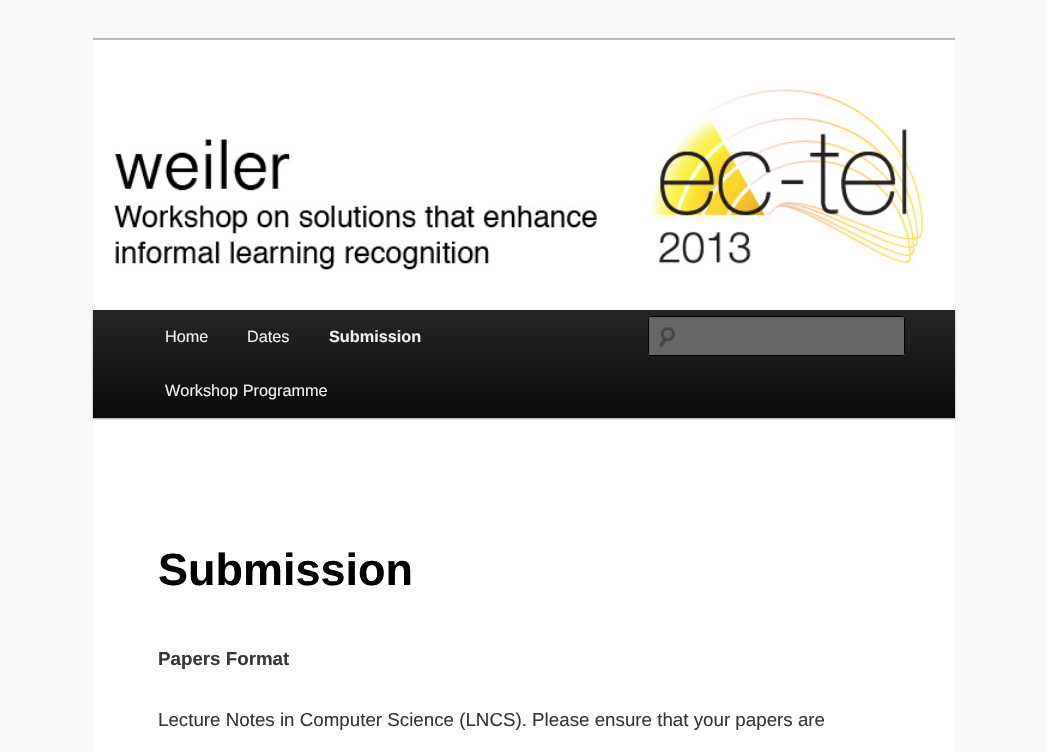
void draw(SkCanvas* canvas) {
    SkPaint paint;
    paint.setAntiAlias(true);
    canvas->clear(0xFFF9F9F9);
    paint.setColor(0xFFFFFFFF);
    canvas->drawRect(SkRect::MakeXYWH(93, 418, 862, 334), paint);
    paint.setColor(0xFFBBBBBB);
    canvas->drawRect(SkRect::MakeXYWH(93, 38, 862, 2), paint);
    paint.setColor(0x66000000);
    paint.setMaskFilter(SkMaskFilter::MakeBlur(kNormal_SkBlurStyle, 1));
    canvas->drawRect(SkRect::MakeXYWH(93, 311, 862, 108), paint);
    paint.setMaskFilter(nullptr);
    canvas->drawImageRect(SkImages::DeferredFromEncodedData(SkData::MakeFromFileName("img1.png")), SkRect::MakeXYWH(93, 40, 862, 270), SkSamplingOptions());
    {
        const SkColor colors[] = {0xFF252525, 0xFF0A0A0A};
        const float stops[] = {0, 1};
        const SkPoint ends[] = {{524, 310}, {524, 418}};
        paint.setShader(SkGradientShader::MakeLinear(ends, colors, stops, 2, SkTileMode::kClamp));
        paint.setAlpha(255);
    }
    canvas->drawRect(SkRect::MakeXYWH(93, 310, 862, 108), paint);
    SkFont font1(fontMgr->matchFamilyStyle("Liberation Sans", SkFontStyle::Normal()), 16.25f);
    font1.setSubpixel(true);
    paint.setShader(nullptr);
    paint.setColor(0xFFEEEEEE);
    canvas->drawString("Home", 165, 342, font1, paint);
    canvas->drawString("Dates", 247, 342, font1, paint);
    SkFont font2(fontMgr->matchFamilyStyle("Liberation Sans", SkFontStyle::Bold()), 16.25f);
    font2.setSubpixel(true);
    canvas->drawString("Submission", 329, 342, font2, paint);
    canvas->drawString("Workshop Programme", 165, 396, font1, paint);
    paint.setColor(0xFF666666);
    canvas->drawRoundRect(SkRect::MakeXYWH(648, 316, 257, 40), 2.5f, 2.5f, paint);
    canvas->drawImageRect(SkImages::DeferredFromEncodedData(SkData::MakeFromFileName("img2.png")), SkRect::MakeXYWH(659, 327, 16, 21), SkSamplingOptions());
    paint.setColor(0xFF5C5C5C);
    canvas->drawPath(SkPathBuilder().moveTo(650, 319).lineTo(902, 319).cubicTo(903, 319, 904, 319, 904, 320).lineTo(904, 318).lineTo(650, 318).cubicTo(649, 318, 649, 319, 649, 320).cubicTo(649, 319, 649, 319, 650, 319).close().detach(), paint);
    paint.setStyle(SkPaint::kStroke_Style);
    paint.setStrokeWidth(1);
    paint.setColor(0xFF000000);
    canvas->drawRoundRect(SkRect::MakeXYWH(648.5f, 316.5f, 256, 39), 2, 2, paint);
    SkFont font3(fontMgr->matchFamilyStyle("Liberation Sans", SkFontStyle::Bold()), 45);
    font3.setSubpixel(true);
    paint.setStyle(SkPaint::kFill_Style);
    canvas->drawString("Submission", 158, 585, font3, paint);
    SkFont font4(fontMgr->matchFamilyStyle("Liberation Sans", SkFontStyle::Bold()), 18.75f);
    font4.setSubpixel(true);
    paint.setColor(0xFF373737);
    canvas->drawString("Papers Format", 158, 665, font4, paint);
    SkFont font5(fontMgr->matchFamilyStyle("Liberation Sans", SkFontStyle::Normal()), 18.75f);
    font5.setSubpixel(true);
    canvas->drawString("Lecture Notes in Computer Science (LNCS). Please ensure that your papers are", 158, 726, font5, paint);
}
